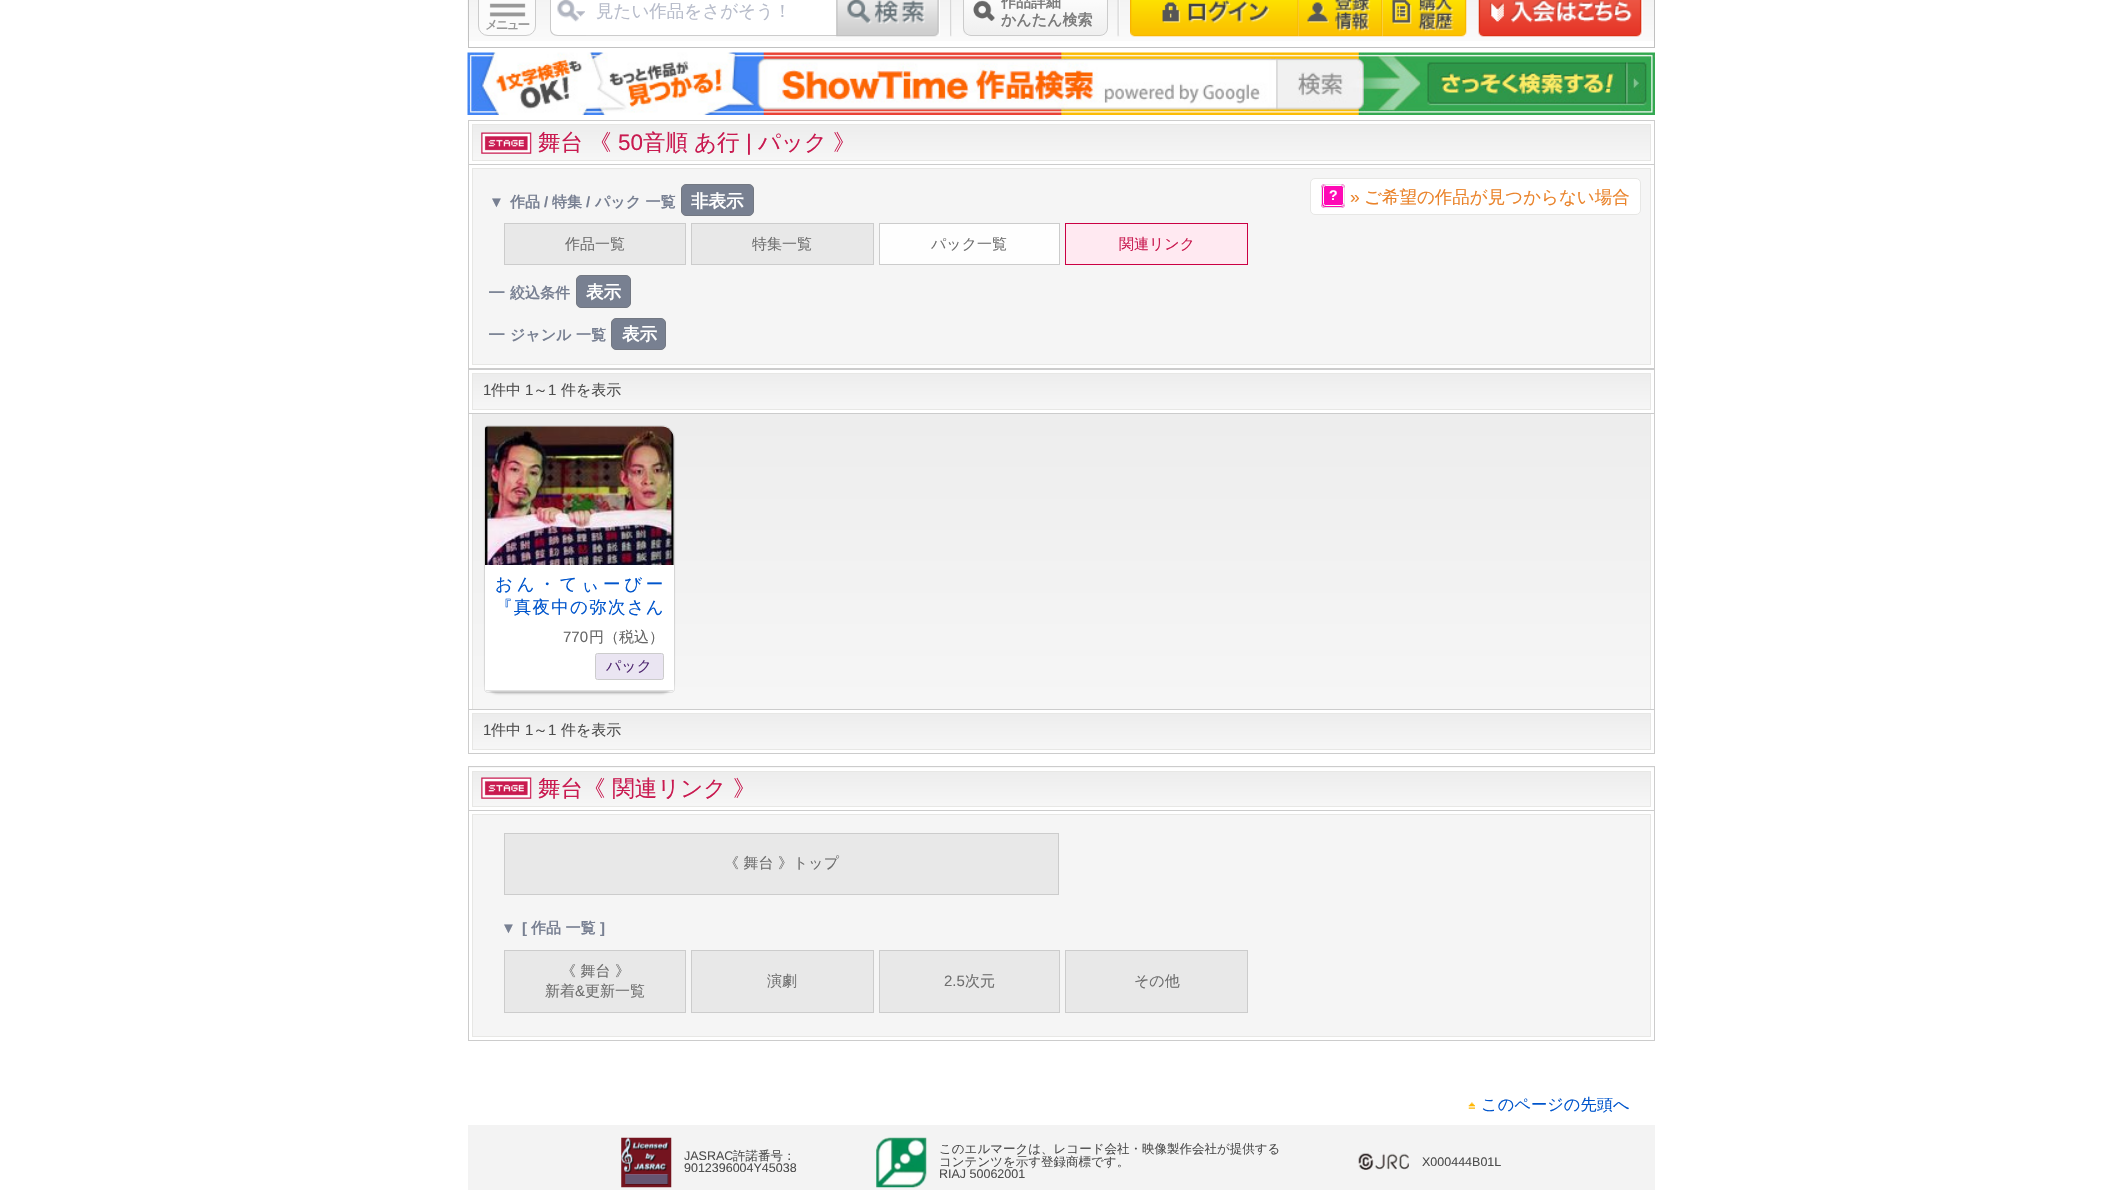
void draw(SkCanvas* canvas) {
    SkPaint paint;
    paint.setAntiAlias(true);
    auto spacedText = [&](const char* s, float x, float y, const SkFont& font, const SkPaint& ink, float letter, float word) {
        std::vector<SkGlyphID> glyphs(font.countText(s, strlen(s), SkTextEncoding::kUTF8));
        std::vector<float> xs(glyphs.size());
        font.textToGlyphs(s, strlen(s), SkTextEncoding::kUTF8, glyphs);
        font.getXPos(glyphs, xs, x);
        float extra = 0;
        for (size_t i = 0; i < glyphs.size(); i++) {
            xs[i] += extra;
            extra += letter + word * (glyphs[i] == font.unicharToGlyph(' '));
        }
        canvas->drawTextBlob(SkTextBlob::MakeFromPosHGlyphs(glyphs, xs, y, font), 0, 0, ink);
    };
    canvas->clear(0xFFFFFFFF);
    canvas->drawImageRect(SkImages::DeferredFromEncodedData(SkData::MakeFromFileName("img1.png")), SkRect::MakeXYWH(467, 0, 1187, 41), SkSamplingOptions());
    paint.setStyle(SkPaint::kStroke_Style);
    paint.setStrokeWidth(1);
    paint.setColor(0xFFC1C1C1);
    canvas->drawRect(SkRect::MakeXYWH(468.5f, -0.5f, 1186, 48), paint);
    paint.setStyle(SkPaint::kFill_Style);
    paint.setColor(0xFFFFFFFF);
    canvas->drawPath(SkPathBuilder().moveTo(558, -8).lineTo(586, -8).lineTo(586, 36).lineTo(558, 36).cubicTo(553.5f, 36, 550, 32.5f, 550, 28).lineTo(550, 0).cubicTo(550, -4.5f, 553.5f, -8, 558, -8).close().detach(), paint);
    paint.setColor(0xFFCACACA);
    canvas->drawPath(SkPathBuilder(SkPathFillType::kEvenOdd).moveTo(558, -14).lineTo(586, -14).lineTo(586, 36).lineTo(558, 36).cubicTo(553, 36, 550, 33, 550, 29).lineTo(550, -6).cubicTo(550, -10, 553, -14, 558, -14).close().moveTo(558, -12).lineTo(586, -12).lineTo(586, 35).lineTo(558, 35).cubicTo(554, 35, 551, 32, 551, 29).lineTo(551, -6).cubicTo(551, -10, 554, -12, 558, -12).close().detach(), paint);
    canvas->drawImageRect(SkImages::DeferredFromEncodedData(SkData::MakeFromFileName("img2.png")), SkRect::MakeXYWH(557, 0, 28, 22), SkSamplingOptions());
    paint.setColor(0xFFFFFFFF);
    canvas->drawRect(SkRect::MakeXYWH(586, 0, 251, 35), paint);
    paint.setColor(0xFFCCCCCC);
    canvas->drawRect(SkRect::MakeXYWH(586, 35, 251, 1), paint);
    SkFont font1(fontMgr->matchFamilyStyle("WenQuanYi Zen Hei", SkFontStyle(500, SkFontStyle::kNormal_Width, SkFontStyle::kUpright_Slant)), 17.5f);
    font1.setSubpixel(true);
    paint.setColor(0xFFB7BCCA);
    canvas->drawString("見たい作品をさがそう！", 596, 17, font1, paint);
    canvas->drawImageRect(SkImages::DeferredFromEncodedData(SkData::MakeFromFileName("img3.png")), SkRect::MakeXYWH(836, 0, 104, 37), SkSamplingOptions());
    canvas->drawImageRect(SkImages::DeferredFromEncodedData(SkData::MakeFromFileName("img4.png")), SkRect::MakeXYWH(950, 0, 2, 37), SkSamplingOptions());
    canvas->drawImageRect(SkImages::DeferredFromEncodedData(SkData::MakeFromFileName("img5.png")), SkRect::MakeXYWH(963, 0, 144, 36), SkSamplingOptions());
    paint.setStyle(SkPaint::kStroke_Style);
    paint.setColor(0xFFCCCCCC);
    canvas->drawRoundRect(SkRect::MakeXYWH(963.5f, -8.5f, 144, 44), 7.5f, 7.5f, paint);
    SkFont font2(fontMgr->matchFamilyStyle("WenQuanYi Zen Hei", SkFontStyle::Bold()), 15);
    font2.setSubpixel(true);
    paint.setStyle(SkPaint::kFill_Style);
    paint.setColor(0xFF7B7B7B);
    canvas->drawString("作品詳細", 1001, 7, font2, paint);
    canvas->drawString("かんたん検索", 1001, 25, font2, paint);
    canvas->drawImageRect(SkImages::DeferredFromEncodedData(SkData::MakeFromFileName("img6.png")), SkRect::MakeXYWH(1117, 0, 3, 37), SkSamplingOptions());
    canvas->drawImageRect(SkImages::DeferredFromEncodedData(SkData::MakeFromFileName("img7.png")), SkRect::MakeXYWH(1130, 0, 169, 37), SkSamplingOptions());
    canvas->drawImageRect(SkImages::DeferredFromEncodedData(SkData::MakeFromFileName("img8.png")), SkRect::MakeXYWH(1298, 0, 85, 37), SkSamplingOptions());
    canvas->drawImageRect(SkImages::DeferredFromEncodedData(SkData::MakeFromFileName("img9.png")), SkRect::MakeXYWH(1382, 0, 85, 37), SkSamplingOptions());
    canvas->drawImageRect(SkImages::DeferredFromEncodedData(SkData::MakeFromFileName("img10.png")), SkRect::MakeXYWH(1478, 0, 165, 37), SkSamplingOptions());
    paint.setColor(0xFFFBFBFB);
    canvas->drawRoundRect(SkRect::MakeXYWH(478, -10, 58, 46), 10, 10, paint);
    canvas->drawImageRect(SkImages::DeferredFromEncodedData(SkData::MakeFromFileName("img11.png")), SkRect::MakeXYWH(489, 3, 37, 14), SkSamplingOptions());
    paint.setStyle(SkPaint::kStroke_Style);
    paint.setColor(0xFFCCCCCC);
    canvas->drawRoundRect(SkRect::MakeXYWH(478.5f, -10.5f, 57, 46), 9.5f, 9.5f, paint);
    SkFont font3(fontMgr->matchFamilyStyle("WenQuanYi Zen Hei", SkFontStyle::Bold()), 12.5f);
    font3.setSubpixel(true);
    paint.setStyle(SkPaint::kFill_Style);
    paint.setColor(0xFF989898);
    spacedText("メニュー", 485, 29, font3, paint, -2, 0);
    canvas->drawImageRect(SkImages::DeferredFromEncodedData(SkData::MakeFromFileName("img12.png")), SkRect::MakeXYWH(467, 52, 1188, 63), SkSamplingOptions());
    {
        const SkColor colors[] = {0xFFECECEC, 0xFFF7F7F7};
        const float stops[] = {0.05f, 0.95f};
        const SkPoint ends[] = {{1061, 121}, {1061, 164}};
        paint.setShader(SkGradientShader::MakeLinear(ends, colors, stops, 2, SkTileMode::kClamp));
        paint.setAlpha(255);
    }
    canvas->drawRect(SkRect::MakeXYWH(473, 125, 1177, 35), paint);
    paint.setStyle(SkPaint::kStroke_Style);
    paint.setStrokeWidth(4);
    paint.setShader(nullptr);
    paint.setColor(0xFFE7E7E5);
    canvas->drawRect(SkRect::MakeXYWH(471, 123, 1181, 39), paint);
    paint.setStrokeWidth(3);
    paint.setColor(0xFFFFFFFF);
    canvas->drawRect(SkRect::MakeXYWH(470.5f, 122.5f, 1182, 40), paint);
    paint.setStrokeWidth(1);
    paint.setColor(0xFFCCCCCC);
    canvas->drawRect(SkRect::MakeXYWH(468.5f, 120.5f, 1186, 44), paint);
    canvas->drawImageRect(SkImages::DeferredFromEncodedData(SkData::MakeFromFileName("img13.png")), SkRect::MakeXYWH(481, 132, 51, 22), SkSamplingOptions());
    SkFont font4(fontMgr->matchFamilyStyle("WenQuanYi Zen Hei", SkFontStyle(500, SkFontStyle::kNormal_Width, SkFontStyle::kUpright_Slant)), 22.5f);
    font4.setSubpixel(true);
    paint.setStyle(SkPaint::kFill_Style);
    paint.setColor(0xFFC91A50);
    canvas->drawString("舞台", 538, 150, font4, paint);
    canvas->drawString("《", 589, 150, font4, paint);
    SkFont font5(fontMgr->matchFamilyStyle("Liberation Sans", SkFontStyle::Normal()), 22.5f);
    font5.setSubpixel(true);
    canvas->drawString("50", 618, 150, font5, paint);
    canvas->drawString("音順", 643, 150, font4, paint);
    canvas->drawString("あ行", 694, 150, font4, paint);
    canvas->drawString("|", 746, 150, font5, paint);
    canvas->drawString("パック", 758, 150, font4, paint);
    canvas->drawString("》", 833, 150, font4, paint);
    paint.setColor(0xFFF5F5F5);
    canvas->drawRect(SkRect::MakeXYWH(471, 167, 1181, 199), paint);
    paint.setStyle(SkPaint::kStroke_Style);
    paint.setStrokeWidth(4);
    paint.setColor(0xFFE7E7E5);
    canvas->drawRect(SkRect::MakeXYWH(471, 167, 1181, 199), paint);
    paint.setStrokeWidth(3);
    paint.setColor(0xFFFFFFFF);
    canvas->drawRect(SkRect::MakeXYWH(470.5f, 166.5f, 1182, 200), paint);
    paint.setStrokeWidth(1);
    paint.setColor(0xFFCCCCCC);
    canvas->drawRect(SkRect::MakeXYWH(468.5f, 164.5f, 1186, 204), paint);
    SkFont font6(fontMgr->matchFamilyStyle("Liberation Sans", SkFontStyle::Bold()), 15);
    font6.setSubpixel(true);
    paint.setStyle(SkPaint::kFill_Style);
    paint.setColor(0xFF788092);
    canvas->drawString("▼", 489, 207, font6, paint);
    canvas->drawString("作品", 510, 207, font2, paint);
    canvas->drawString("/", 544, 207, font6, paint);
    canvas->drawString("特集", 552, 207, font2, paint);
    canvas->drawString("/", 586, 207, font6, paint);
    canvas->drawString("パック 一覧", 595, 207, font2, paint);
    paint.setColor(0xFF788091);
    canvas->drawRoundRect(SkRect::MakeXYWH(681.5f, 184.5f, 72, 31), 4.5f, 4.5f, paint);
    paint.setStyle(SkPaint::kStroke_Style);
    paint.setColor(0xFF737882);
    canvas->drawRoundRect(SkRect::MakeXYWH(681.5f, 184.5f, 72, 31), 4.5f, 4.5f, paint);
    SkFont font7(fontMgr->matchFamilyStyle("WenQuanYi Zen Hei", SkFontStyle::Bold()), 17.5f);
    font7.setSubpixel(true);
    paint.setStyle(SkPaint::kFill_Style);
    paint.setColor(0xFFFFFFFF);
    canvas->drawString("非表示", 691, 207, font7, paint);
    paint.setColor(0xFFE8E8E8);
    canvas->drawRect(SkRect::MakeXYWH(504.5f, 223.5f, 181, 41), paint);
    paint.setStyle(SkPaint::kStroke_Style);
    paint.setColor(0xFFCCCCCC);
    canvas->drawRect(SkRect::MakeXYWH(504.5f, 223.5f, 181, 41), paint);
    SkFont font8(fontMgr->matchFamilyStyle("WenQuanYi Zen Hei", SkFontStyle(500, SkFontStyle::kNormal_Width, SkFontStyle::kUpright_Slant)), 15);
    font8.setSubpixel(true);
    paint.setStyle(SkPaint::kFill_Style);
    paint.setColor(0xFF6F6F6F);
    canvas->drawString("作品一覧", 565, 249, font8, paint);
    paint.setColor(0xFFE8E8E8);
    canvas->drawRect(SkRect::MakeXYWH(691.5f, 223.5f, 182, 41), paint);
    paint.setStyle(SkPaint::kStroke_Style);
    paint.setColor(0xFFCCCCCC);
    canvas->drawRect(SkRect::MakeXYWH(691.5f, 223.5f, 182, 41), paint);
    paint.setStyle(SkPaint::kFill_Style);
    paint.setColor(0xFF6F6F6F);
    canvas->drawString("特集一覧", 752, 249, font8, paint);
    paint.setColor(0xFFFEFEFE);
    canvas->drawRect(SkRect::MakeXYWH(879.5f, 223.5f, 180, 41), paint);
    paint.setStyle(SkPaint::kStroke_Style);
    paint.setColor(0xFFCCCCCC);
    canvas->drawRect(SkRect::MakeXYWH(879.5f, 223.5f, 180, 41), paint);
    paint.setStyle(SkPaint::kFill_Style);
    paint.setColor(0xFF6F6F6F);
    canvas->drawString("パック一覧", 931, 249, font8, paint);
    paint.setColor(0xFFFFE9F1);
    canvas->drawRect(SkRect::MakeXYWH(1065.5f, 223.5f, 182, 41), paint);
    paint.setStyle(SkPaint::kStroke_Style);
    paint.setColor(0xFFCB0043);
    canvas->drawRect(SkRect::MakeXYWH(1065.5f, 223.5f, 182, 41), paint);
    paint.setStyle(SkPaint::kFill_Style);
    paint.setColor(0xFFC91A50);
    canvas->drawString("関連リンク", 1119, 249, font8, paint);
    paint.setColor(0xFF788092);
    canvas->drawString("━", 489, 298, font2, paint);
    canvas->drawString("絞込条件", 510, 298, font2, paint);
    paint.setColor(0xFF788091);
    canvas->drawRoundRect(SkRect::MakeXYWH(576.5f, 275.5f, 54, 32), 4.5f, 4.5f, paint);
    paint.setStyle(SkPaint::kStroke_Style);
    paint.setColor(0xFF737882);
    canvas->drawRoundRect(SkRect::MakeXYWH(576.5f, 275.5f, 54, 32), 4.5f, 4.5f, paint);
    paint.setStyle(SkPaint::kFill_Style);
    paint.setColor(0xFFFFFFFF);
    canvas->drawString("表示", 586, 298, font7, paint);
    paint.setColor(0xFF788092);
    canvas->drawString("━", 489, 340, font2, paint);
    canvas->drawString("ジャンル 一覧", 510, 340, font2, paint);
    paint.setColor(0xFF788091);
    canvas->drawRoundRect(SkRect::MakeXYWH(611.5f, 318.5f, 54, 31), 4.5f, 4.5f, paint);
    paint.setStyle(SkPaint::kStroke_Style);
    paint.setColor(0xFF737882);
    canvas->drawRoundRect(SkRect::MakeXYWH(611.5f, 318.5f, 54, 31), 4.5f, 4.5f, paint);
    paint.setStyle(SkPaint::kFill_Style);
    paint.setColor(0xFFFFFFFF);
    canvas->drawString("表示", 622, 340, font7, paint);
    canvas->drawRoundRect(SkRect::MakeXYWH(1310.5f, 178.5f, 330, 36), 4.5f, 4.5f, paint);
    paint.setStyle(SkPaint::kStroke_Style);
    paint.setColor(0xFFE7E7E5);
    canvas->drawRoundRect(SkRect::MakeXYWH(1310.5f, 178.5f, 330, 36), 4.5f, 4.5f, paint);
    paint.setStyle(SkPaint::kFill_Style);
    paint.setColor(0xFFFE0AB5);
    canvas->drawRoundRect(SkRect::MakeXYWH(1321, 184, 24, 24), 4, 4, paint);
    paint.setStyle(SkPaint::kStroke_Style);
    paint.setColor(0xFFFFFFFF);
    canvas->drawRoundRect(SkRect::MakeXYWH(1323.5f, 185.5f, 20, 20), 2, 2, paint);
    paint.setColor(0xFFE7E7E5);
    canvas->drawRoundRect(SkRect::MakeXYWH(1321.5f, 184.5f, 23, 23), 3.5f, 3.5f, paint);
    SkFont font9(fontMgr->matchFamilyStyle("Liberation Sans", SkFontStyle::Bold()), 14);
    font9.setSubpixel(true);
    paint.setStyle(SkPaint::kFill_Style);
    paint.setColor(0xFFFFFFFF);
    canvas->drawString("?", 1329, 200, font9, paint);
    SkFont font10(fontMgr->matchFamilyStyle("Liberation Sans", SkFontStyle::Normal()), 17.5f);
    font10.setSubpixel(true);
    paint.setColor(0xFFEA832A);
    canvas->drawString("»", 1350, 203, font10, paint);
    canvas->drawString("ご希望の作品が見つからない場合", 1364, 203, font1, paint);
    {
        const SkColor colors[] = {0xFFECECEC, 0xFFF7F7F7};
        const float stops[] = {0.05f, 0.95f};
        const SkPoint ends[] = {{1061, 370}, {1061, 753}};
        paint.setShader(SkGradientShader::MakeLinear(ends, colors, stops, 2, SkTileMode::kClamp));
        paint.setAlpha(255);
    }
    canvas->drawRect(SkRect::MakeXYWH(473, 414, 1177, 295), paint);
    paint.setStyle(SkPaint::kStroke_Style);
    paint.setStrokeWidth(4);
    paint.setShader(nullptr);
    paint.setColor(0xFFE7E7E5);
    canvas->drawRect(SkRect::MakeXYWH(471, 372, 1181, 379), paint);
    paint.setStrokeWidth(3);
    paint.setColor(0xFFFFFFFF);
    canvas->drawRect(SkRect::MakeXYWH(470.5f, 371.5f, 1182, 380), paint);
    paint.setStrokeWidth(1);
    paint.setColor(0xFFCCCCCC);
    canvas->drawRect(SkRect::MakeXYWH(468.5f, 369.5f, 1186, 384), paint);
    paint.setStyle(SkPaint::kFill_Style);
    {
        const SkColor colors[] = {0xFFECECEC, 0xFFF7F7F7};
        const float stops[] = {0.05f, 0.95f};
        const SkPoint ends[] = {{1061, 370}, {1061, 413}};
        paint.setShader(SkGradientShader::MakeLinear(ends, colors, stops, 2, SkTileMode::kClamp));
        paint.setAlpha(255);
    }
    canvas->drawRect(SkRect::MakeXYWH(473, 374, 1177, 35), paint);
    paint.setStyle(SkPaint::kStroke_Style);
    paint.setStrokeWidth(4);
    paint.setShader(nullptr);
    paint.setColor(0xFFE7E7E5);
    canvas->drawRect(SkRect::MakeXYWH(471, 372, 1181, 39), paint);
    paint.setStrokeWidth(3);
    paint.setColor(0xFFFFFFFF);
    canvas->drawRect(SkRect::MakeXYWH(470.5f, 371.5f, 1182, 40), paint);
    paint.setStyle(SkPaint::kFill_Style);
    paint.setColor(0xFFCCCCCC);
    canvas->drawRect(SkRect::MakeXYWH(469, 413, 1185, 1), paint);
    SkFont font11(fontMgr->matchFamilyStyle("Liberation Sans", SkFontStyle::Normal()), 15);
    font11.setSubpixel(true);
    paint.setColor(0xFF4D4D4D);
    canvas->drawString("1", 483, 395, font11, paint);
    canvas->drawString("件中", 491, 395, font8, paint);
    canvas->drawString("1", 525, 395, font11, paint);
    canvas->drawString("～", 533, 395, font8, paint);
    canvas->drawString("1", 548, 395, font11, paint);
    canvas->drawString("件を表示", 561, 395, font8, paint);
    paint.setStyle(SkPaint::kStroke_Style);
    paint.setStrokeWidth(1);
    paint.setColor(0x14000000);
    canvas->drawPath(SkPathBuilder().moveTo(488, 425.5f).lineTo(661, 425.5f).cubicTo(668.5f, 425.5f, 674.5f, 431.5f, 674.5f, 439).lineTo(674.5f, 689).cubicTo(674.5f, 691, 673, 692.5f, 671, 692.5f).lineTo(488, 692.5f).cubicTo(486, 692.5f, 484.5f, 691, 484.5f, 689).lineTo(484.5f, 429).cubicTo(484.5f, 427, 486, 425.5f, 488, 425.5f).close().detach(), paint);
    paint.setStyle(SkPaint::kFill_Style);
    paint.setColor(0x29000000);
    paint.setMaskFilter(SkMaskFilter::MakeBlur(kNormal_SkBlurStyle, 1));
    canvas->drawRoundRect(SkRect::MakeXYWH(485, 429, 189, 265), 13, 13, paint);
    paint.setMaskFilter(nullptr);
    paint.setColor(0xFFFFFFFF);
    canvas->drawPath(SkPathBuilder().moveTo(487.5f, 426).lineTo(661, 426).cubicTo(668, 426, 674, 432, 674, 439).lineTo(674, 688.5f).cubicTo(674, 690, 673, 691, 671.5f, 691).lineTo(487.5f, 691).cubicTo(486, 691, 485, 690, 485, 688.5f).lineTo(485, 428.5f).cubicTo(485, 427, 486, 426, 487.5f, 426).close().detach(), paint);
    canvas->drawImageRect(SkImages::DeferredFromEncodedData(SkData::MakeFromFileName("img14.png")), SkRect::MakeXYWH(659, 565, 4, 1), SkSamplingOptions());
    paint.setColor(0xFFE1E1E1);
    canvas->drawRect(SkRect::MakeXYWH(486, 690, 187, 1), paint);
    canvas->drawImageRect(SkImages::DeferredFromEncodedData(SkData::MakeFromFileName("img15.png")), SkRect::MakeXYWH(485, 426, 189, 139), SkSamplingOptions());
    paint.setColor(0xFF0055CC);
    spacedText("おん・てぃーびー", 495, 590, font1, paint, 3.75f, 0);
    spacedText("『真夜中の弥次さん", 495, 613, font1, paint, 1.25f, 0);
    paint.setColor(0xFF666666);
    canvas->drawString("770", 563, 642, font11, paint);
    canvas->drawString("円（税込）", 589, 642, font8, paint);
    paint.setColor(0xFFEAE5F2);
    canvas->drawRoundRect(SkRect::MakeXYWH(595.5f, 653.5f, 68, 26), 2, 2, paint);
    paint.setStyle(SkPaint::kStroke_Style);
    paint.setColor(0xFFCCCCCC);
    canvas->drawRoundRect(SkRect::MakeXYWH(595.5f, 653.5f, 68, 26), 2, 2, paint);
    paint.setStyle(SkPaint::kFill_Style);
    paint.setColor(0xFF512972);
    canvas->drawString("パック", 606, 671, font8, paint);
    {
        const SkColor colors[] = {0xFFECECEC, 0xFFF7F7F7};
        const float stops[] = {0.05f, 0.95f};
        const SkPoint ends[] = {{1061, 710}, {1061, 753}};
        paint.setShader(SkGradientShader::MakeLinear(ends, colors, stops, 2, SkTileMode::kClamp));
        paint.setAlpha(255);
    }
    canvas->drawRect(SkRect::MakeXYWH(473, 714, 1177, 35), paint);
    paint.setStyle(SkPaint::kStroke_Style);
    paint.setStrokeWidth(4);
    paint.setShader(nullptr);
    paint.setColor(0xFFE7E7E5);
    canvas->drawRect(SkRect::MakeXYWH(471, 712, 1181, 39), paint);
    paint.setStrokeWidth(3);
    paint.setColor(0xFFFFFFFF);
    canvas->drawRect(SkRect::MakeXYWH(470.5f, 711.5f, 1182, 40), paint);
    paint.setStyle(SkPaint::kFill_Style);
    paint.setColor(0xFFCCCCCC);
    canvas->drawRect(SkRect::MakeXYWH(469, 709, 1185, 1), paint);
    paint.setColor(0xFF4D4D4D);
    canvas->drawString("1", 483, 735, font11, paint);
    canvas->drawString("件中", 491, 735, font8, paint);
    canvas->drawString("1", 525, 735, font11, paint);
    canvas->drawString("～", 533, 735, font8, paint);
    canvas->drawString("1", 548, 735, font11, paint);
    canvas->drawString("件を表示", 561, 735, font8, paint);
    {
        const SkColor colors[] = {0xFFECECEC, 0xFFF7F7F7};
        const float stops[] = {0.05f, 0.95f};
        const SkPoint ends[] = {{1061, 725}, {1061, 768}};
        paint.setShader(SkGradientShader::MakeLinear(ends, colors, stops, 2, SkTileMode::kClamp));
        paint.setAlpha(255);
    }
    canvas->drawRect(SkRect::MakeXYWH(468, 767, 1187, 1), paint);
    {
        const SkColor colors[] = {0xFFECECEC, 0xFFF7F7F7};
        const float stops[] = {0.05f, 0.95f};
        const SkPoint ends[] = {{1061, 768}, {1061, 810}};
        paint.setShader(SkGradientShader::MakeLinear(ends, colors, stops, 2, SkTileMode::kClamp));
        paint.setAlpha(255);
    }
    canvas->drawRect(SkRect::MakeXYWH(473, 772, 1177, 34), paint);
    paint.setStyle(SkPaint::kStroke_Style);
    paint.setStrokeWidth(4);
    paint.setShader(nullptr);
    paint.setColor(0xFFE7E7E5);
    canvas->drawRect(SkRect::MakeXYWH(471, 770, 1181, 38), paint);
    paint.setStrokeWidth(3);
    paint.setColor(0xFFFFFFFF);
    canvas->drawRect(SkRect::MakeXYWH(470.5f, 769.5f, 1182, 39), paint);
    paint.setStrokeWidth(1);
    paint.setColor(0xFFCCCCCC);
    canvas->drawRect(SkRect::MakeXYWH(468.5f, 766.5f, 1186, 44), paint);
    canvas->drawImageRect(SkImages::DeferredFromEncodedData(SkData::MakeFromFileName("img16.png")), SkRect::MakeXYWH(481, 777, 51, 22), SkSamplingOptions());
    paint.setStyle(SkPaint::kFill_Style);
    paint.setColor(0xFFC91A50);
    canvas->drawString("舞台《 関連リンク 》", 538, 796, font4, paint);
    paint.setColor(0xFFF5F5F5);
    canvas->drawRect(SkRect::MakeXYWH(471, 813, 1181, 225), paint);
    paint.setStyle(SkPaint::kStroke_Style);
    paint.setStrokeWidth(4);
    paint.setColor(0xFFE7E7E5);
    canvas->drawRect(SkRect::MakeXYWH(471, 813, 1181, 225), paint);
    paint.setStrokeWidth(3);
    paint.setColor(0xFFFFFFFF);
    canvas->drawRect(SkRect::MakeXYWH(470.5f, 812.5f, 1182, 226), paint);
    paint.setStrokeWidth(1);
    paint.setColor(0xFFCCCCCC);
    canvas->drawRect(SkRect::MakeXYWH(468.5f, 810.5f, 1186, 230), paint);
    paint.setStyle(SkPaint::kFill_Style);
    paint.setColor(0xFFE8E8E8);
    canvas->drawRect(SkRect::MakeXYWH(504.5f, 833.5f, 554, 61), paint);
    paint.setStyle(SkPaint::kStroke_Style);
    paint.setColor(0xFFCCCCCC);
    canvas->drawRect(SkRect::MakeXYWH(504.5f, 833.5f, 554, 61), paint);
    paint.setStyle(SkPaint::kFill_Style);
    paint.setColor(0xFF6F6F6F);
    canvas->drawString("《 舞台 》トップ", 724, 868, font8, paint);
    paint.setColor(0xFF788092);
    canvas->drawString("▼", 501, 933, font6, paint);
    canvas->drawString("[", 522, 933, font6, paint);
    canvas->drawString("作品 一覧", 531, 933, font2, paint);
    canvas->drawString("]", 600, 933, font6, paint);
    paint.setColor(0xFFE8E8E8);
    canvas->drawRect(SkRect::MakeXYWH(504.5f, 950.5f, 181, 62), paint);
    paint.setStyle(SkPaint::kStroke_Style);
    paint.setColor(0xFFCCCCCC);
    canvas->drawRect(SkRect::MakeXYWH(504.5f, 950.5f, 181, 62), paint);
    paint.setStyle(SkPaint::kFill_Style);
    paint.setColor(0xFF6F6F6F);
    canvas->drawString("《 舞台 》", 561, 976, font8, paint);
    canvas->drawString("新着", 545, 996, font8, paint);
    canvas->drawString("&", 575, 996, font11, paint);
    canvas->drawString("更新一覧", 585, 996, font8, paint);
    paint.setColor(0xFFE8E8E8);
    canvas->drawRect(SkRect::MakeXYWH(691.5f, 950.5f, 182, 62), paint);
    paint.setStyle(SkPaint::kStroke_Style);
    paint.setColor(0xFFCCCCCC);
    canvas->drawRect(SkRect::MakeXYWH(691.5f, 950.5f, 182, 62), paint);
    paint.setStyle(SkPaint::kFill_Style);
    paint.setColor(0xFF6F6F6F);
    canvas->drawString("演劇", 767, 986, font8, paint);
    paint.setColor(0xFFE8E8E8);
    canvas->drawRect(SkRect::MakeXYWH(879.5f, 950.5f, 180, 62), paint);
    paint.setStyle(SkPaint::kStroke_Style);
    paint.setColor(0xFFCCCCCC);
    canvas->drawRect(SkRect::MakeXYWH(879.5f, 950.5f, 180, 62), paint);
    paint.setStyle(SkPaint::kFill_Style);
    paint.setColor(0xFF6F6F6F);
    canvas->drawString("2.5", 944, 986, font11, paint);
    canvas->drawString("次元", 965, 986, font8, paint);
    paint.setColor(0xFFE8E8E8);
    canvas->drawRect(SkRect::MakeXYWH(1065.5f, 950.5f, 182, 62), paint);
    paint.setStyle(SkPaint::kStroke_Style);
    paint.setColor(0xFFCCCCCC);
    canvas->drawRect(SkRect::MakeXYWH(1065.5f, 950.5f, 182, 62), paint);
    paint.setStyle(SkPaint::kFill_Style);
    paint.setColor(0xFF6F6F6F);
    canvas->drawString("その他", 1134, 986, font8, paint);
    canvas->drawImageRect(SkImages::DeferredFromEncodedData(SkData::MakeFromFileName("img17.png")), SkRect::MakeXYWH(1468, 1102, 7, 7), SkSamplingOptions());
    SkFont font12(fontMgr->matchFamilyStyle("WenQuanYi Zen Hei", SkFontStyle(500, SkFontStyle::kNormal_Width, SkFontStyle::kUpright_Slant)), 16.25f);
    font12.setSubpixel(true);
    paint.setColor(0xFF0055CC);
    canvas->drawString("このページの先頭へ", 1481, 1110, font12, paint);
    paint.setColor(0xFFF3F3F3);
    canvas->drawRect(SkRect::MakeXYWH(468, 1125, 1187, 65), paint);
    canvas->drawImageRect(SkImages::DeferredFromEncodedData(SkData::MakeFromFileName("img18.png")), SkRect::MakeXYWH(621, 1137, 51, 51), SkSamplingOptions());
    SkFont font13(fontMgr->matchFamilyStyle("Liberation Sans", SkFontStyle::Normal()), 12.5f);
    font13.setSubpixel(true);
    paint.setColor(0xFF4D4D4D);
    canvas->drawString("JASRAC", 684, 1160, font13, paint);
    SkFont font14(fontMgr->matchFamilyStyle("WenQuanYi Zen Hei", SkFontStyle(500, SkFontStyle::kNormal_Width, SkFontStyle::kUpright_Slant)), 12.5f);
    font14.setSubpixel(true);
    canvas->drawString("許諾番号：", 733, 1160, font14, paint);
    canvas->drawString("9012396004Y45038", 684, 1172, font13, paint);
    canvas->drawImageRect(SkImages::DeferredFromEncodedData(SkData::MakeFromFileName("img19.png")), SkRect::MakeXYWH(876, 1137, 51, 51), SkSamplingOptions());
    canvas->drawString("このエルマークは、レコード会社・映像製作会社が提供する", 939, 1153, font14, paint);
    canvas->drawString("コンテンツを示す登録商標です。", 939, 1166, font14, paint);
    canvas->drawString("RIAJ 50062001", 939, 1178, font13, paint);
    canvas->drawImageRect(SkImages::DeferredFromEncodedData(SkData::MakeFromFileName("img20.png")), SkRect::MakeXYWH(1358, 1153, 51, 17), SkSamplingOptions());
    canvas->drawString("X000444B01L", 1422, 1166, font13, paint);
}
